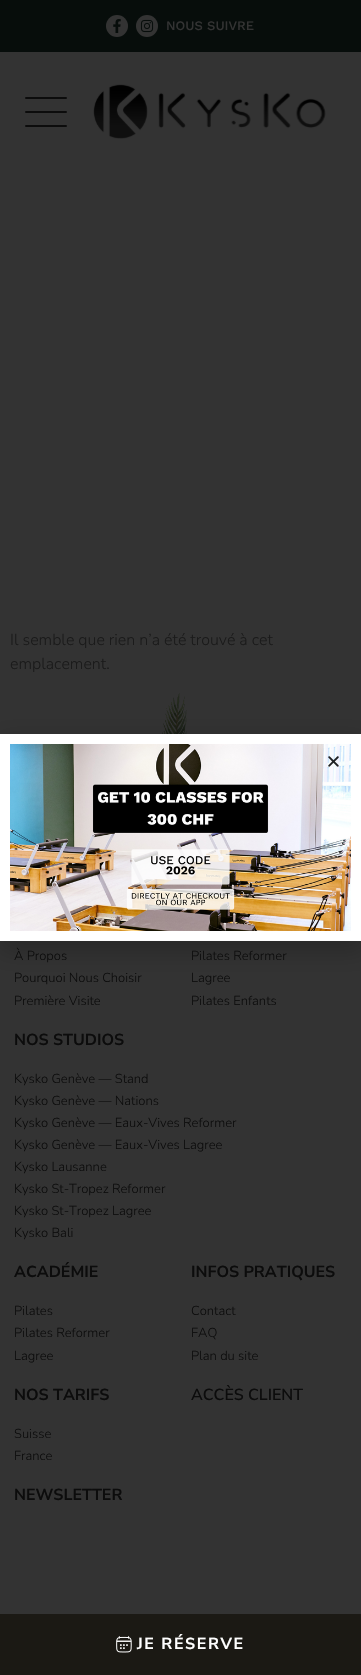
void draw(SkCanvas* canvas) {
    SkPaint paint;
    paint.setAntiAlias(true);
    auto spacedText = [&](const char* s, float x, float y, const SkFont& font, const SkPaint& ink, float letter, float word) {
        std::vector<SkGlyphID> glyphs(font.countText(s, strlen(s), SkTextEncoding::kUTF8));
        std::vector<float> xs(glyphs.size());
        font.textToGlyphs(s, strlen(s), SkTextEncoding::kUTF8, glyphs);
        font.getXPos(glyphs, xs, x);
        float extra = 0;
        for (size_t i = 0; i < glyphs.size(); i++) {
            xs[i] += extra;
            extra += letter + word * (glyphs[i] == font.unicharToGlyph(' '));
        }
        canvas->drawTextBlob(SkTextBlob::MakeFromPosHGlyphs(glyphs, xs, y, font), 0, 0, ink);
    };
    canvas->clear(0xFF333333);
    paint.setColor(0xFF070D0B);
    canvas->drawRect(SkRect::MakeXYWH(0, 0, 361, 52), paint);
    paint.setColor(0xFF333333);
    canvas->drawCircle(117, 26, 11, paint);
    canvas->drawImageRect(SkImages::DeferredFromEncodedData(SkData::MakeFromFileName("img1.png")), SkRect::MakeXYWH(113, 19, 8, 14), SkSamplingOptions());
    canvas->drawCircle(147, 26, 11, paint);
    canvas->drawImageRect(SkImages::DeferredFromEncodedData(SkData::MakeFromFileName("img2.png")), SkRect::MakeXYWH(140, 19, 14, 14), SkSamplingOptions());
    SkFont font1(fontMgr->matchFamilyStyle("Work Sans", SkFontStyle(500, SkFontStyle::kNormal_Width, SkFontStyle::kUpright_Slant)), 13);
    font1.setSubpixel(true);
    canvas->drawString("NOUS SUIVRE", 166, 30, font1, paint);
    paint.setColor(0xFF0C0C0C);
    canvas->drawRoundRect(SkRect::MakeXYWH(25, 97, 42, 2), 1, 1, paint);
    canvas->drawRoundRect(SkRect::MakeXYWH(25, 111, 42, 2), 1, 1, paint);
    canvas->drawRoundRect(SkRect::MakeXYWH(25, 125, 42, 2), 1, 1, paint);
    canvas->drawImageRect(SkImages::DeferredFromEncodedData(SkData::MakeFromFileName("img3.png")), SkRect::MakeXYWH(93, 84, 233, 55), SkSamplingOptions());
    SkFont font2(fontMgr->matchFamilyStyle("Nunito Sans", SkFontStyle(300, SkFontStyle::kNormal_Width, SkFontStyle::kUpright_Slant)), 16);
    font2.setSubpixel(true);
    paint.setColor(0xFF1A1A1A);
    canvas->drawString("Il semble que rien n’a été trouvé à cet", 10, 645, font2, paint);
    canvas->drawString("emplacement.", 10, 669, font2, paint);
    canvas->drawImageRect(SkImages::DeferredFromEncodedData(SkData::MakeFromFileName("img6.png")), SkRect::MakeXYWH(162, 693, 25, 41), SkSamplingOptions());
    paint.setColor(0x33000000);
    paint.setMaskFilter(SkMaskFilter::MakeBlur(kNormal_SkBlurStyle, 11.5f));
    canvas->drawRect(SkRect::MakeXYWH(-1, 739, 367, 213), paint);
    paint.setMaskFilter(nullptr);
    paint.setColor(0xFFFFFFFF);
    canvas->drawRect(SkRect::MakeXYWH(0, 734, 361, 207), paint);
    canvas->drawImageRect(SkImages::DeferredFromEncodedData(SkData::MakeFromFileName("img4.png")), SkRect::MakeXYWH(10, 744, 341, 187), SkSamplingOptions());
    canvas->drawImageRect(SkImages::DeferredFromEncodedData(SkData::MakeFromFileName("img5.png")), SkRect::MakeXYWH(328, 756, 11, 11), SkSamplingOptions());
    SkFont font3(fontMgr->matchFamilyStyle("Nunito Sans", SkFontStyle(300, SkFontStyle::kNormal_Width, SkFontStyle::kUpright_Slant)), 13);
    font3.setSubpixel(true);
    paint.setColor(0xFF0C0C0C);
    canvas->drawString("À Propos", 14, 960, font3, paint);
    canvas->drawString("Pourquoi Nous Choisir", 14, 982, font3, paint);
    canvas->drawString("Première Visite", 14, 1005, font3, paint);
    canvas->drawString("Pilates Reformer", 191, 960, font3, paint);
    canvas->drawString("Lagree", 191, 982, font3, paint);
    canvas->drawString("Pilates Enfants", 191, 1005, font3, paint);
    SkFont font4(fontMgr->matchFamilyStyle("Nunito Sans", SkFontStyle::Bold()), 16);
    font4.setSubpixel(true);
    canvas->drawString("NOS STUDIOS", 14, 1045, font4, paint);
    canvas->drawString("Kysko Genève — Stand", 14, 1083, font3, paint);
    canvas->drawString("Kysko Genève — Nations", 14, 1105, font3, paint);
    canvas->drawString("Kysko Genève — Eaux-Vives Reformer", 14, 1127, font3, paint);
    canvas->drawString("Kysko Genève — Eaux-Vives Lagree", 14, 1149, font3, paint);
    canvas->drawString("Kysko Lausanne", 14, 1171, font3, paint);
    canvas->drawString("Kysko St-Tropez Reformer", 14, 1193, font3, paint);
    canvas->drawString("Kysko St-Tropez Lagree", 14, 1215, font3, paint);
    canvas->drawString("Kysko Bali", 14, 1237, font3, paint);
    canvas->drawString("ACADÉMIE", 14, 1277, font4, paint);
    canvas->drawString("Pilates", 14, 1315, font3, paint);
    canvas->drawString("Pilates Reformer", 14, 1337, font3, paint);
    canvas->drawString("Lagree", 14, 1360, font3, paint);
    canvas->drawString("NOS TARIFS", 14, 1400, font4, paint);
    canvas->drawString("Suisse", 14, 1438, font3, paint);
    canvas->drawString("France", 14, 1460, font3, paint);
    canvas->drawString("INFOS PRATIQUES", 191, 1277, font4, paint);
    canvas->drawString("Contact", 191, 1315, font3, paint);
    canvas->drawString("FAQ", 191, 1337, font3, paint);
    canvas->drawString("Plan du site", 191, 1360, font3, paint);
    SkFont font5(fontMgr->matchFamilyStyle("Nunito Sans", SkFontStyle(600, SkFontStyle::kNormal_Width, SkFontStyle::kUpright_Slant)), 16);
    font5.setSubpixel(true);
    canvas->drawString("ACCÈS CLIENT", 191, 1400, font5, paint);
    canvas->drawString("NEWSLETTER", 14, 1500, font4, paint);
    paint.setColor(0xFF1B1914);
    canvas->drawRect(SkRect::MakeXYWH(0, 1614, 361, 61), paint);
    canvas->drawImageRect(SkImages::DeferredFromEncodedData(SkData::MakeFromFileName("img7.png")), SkRect::MakeXYWH(116, 1636, 16, 17), SkSamplingOptions());
    paint.setColor(0xFFFFFFFF);
    spacedText("JE RÉSERVE", 137, 1649, font4, paint, 1.6f, 0);
}
